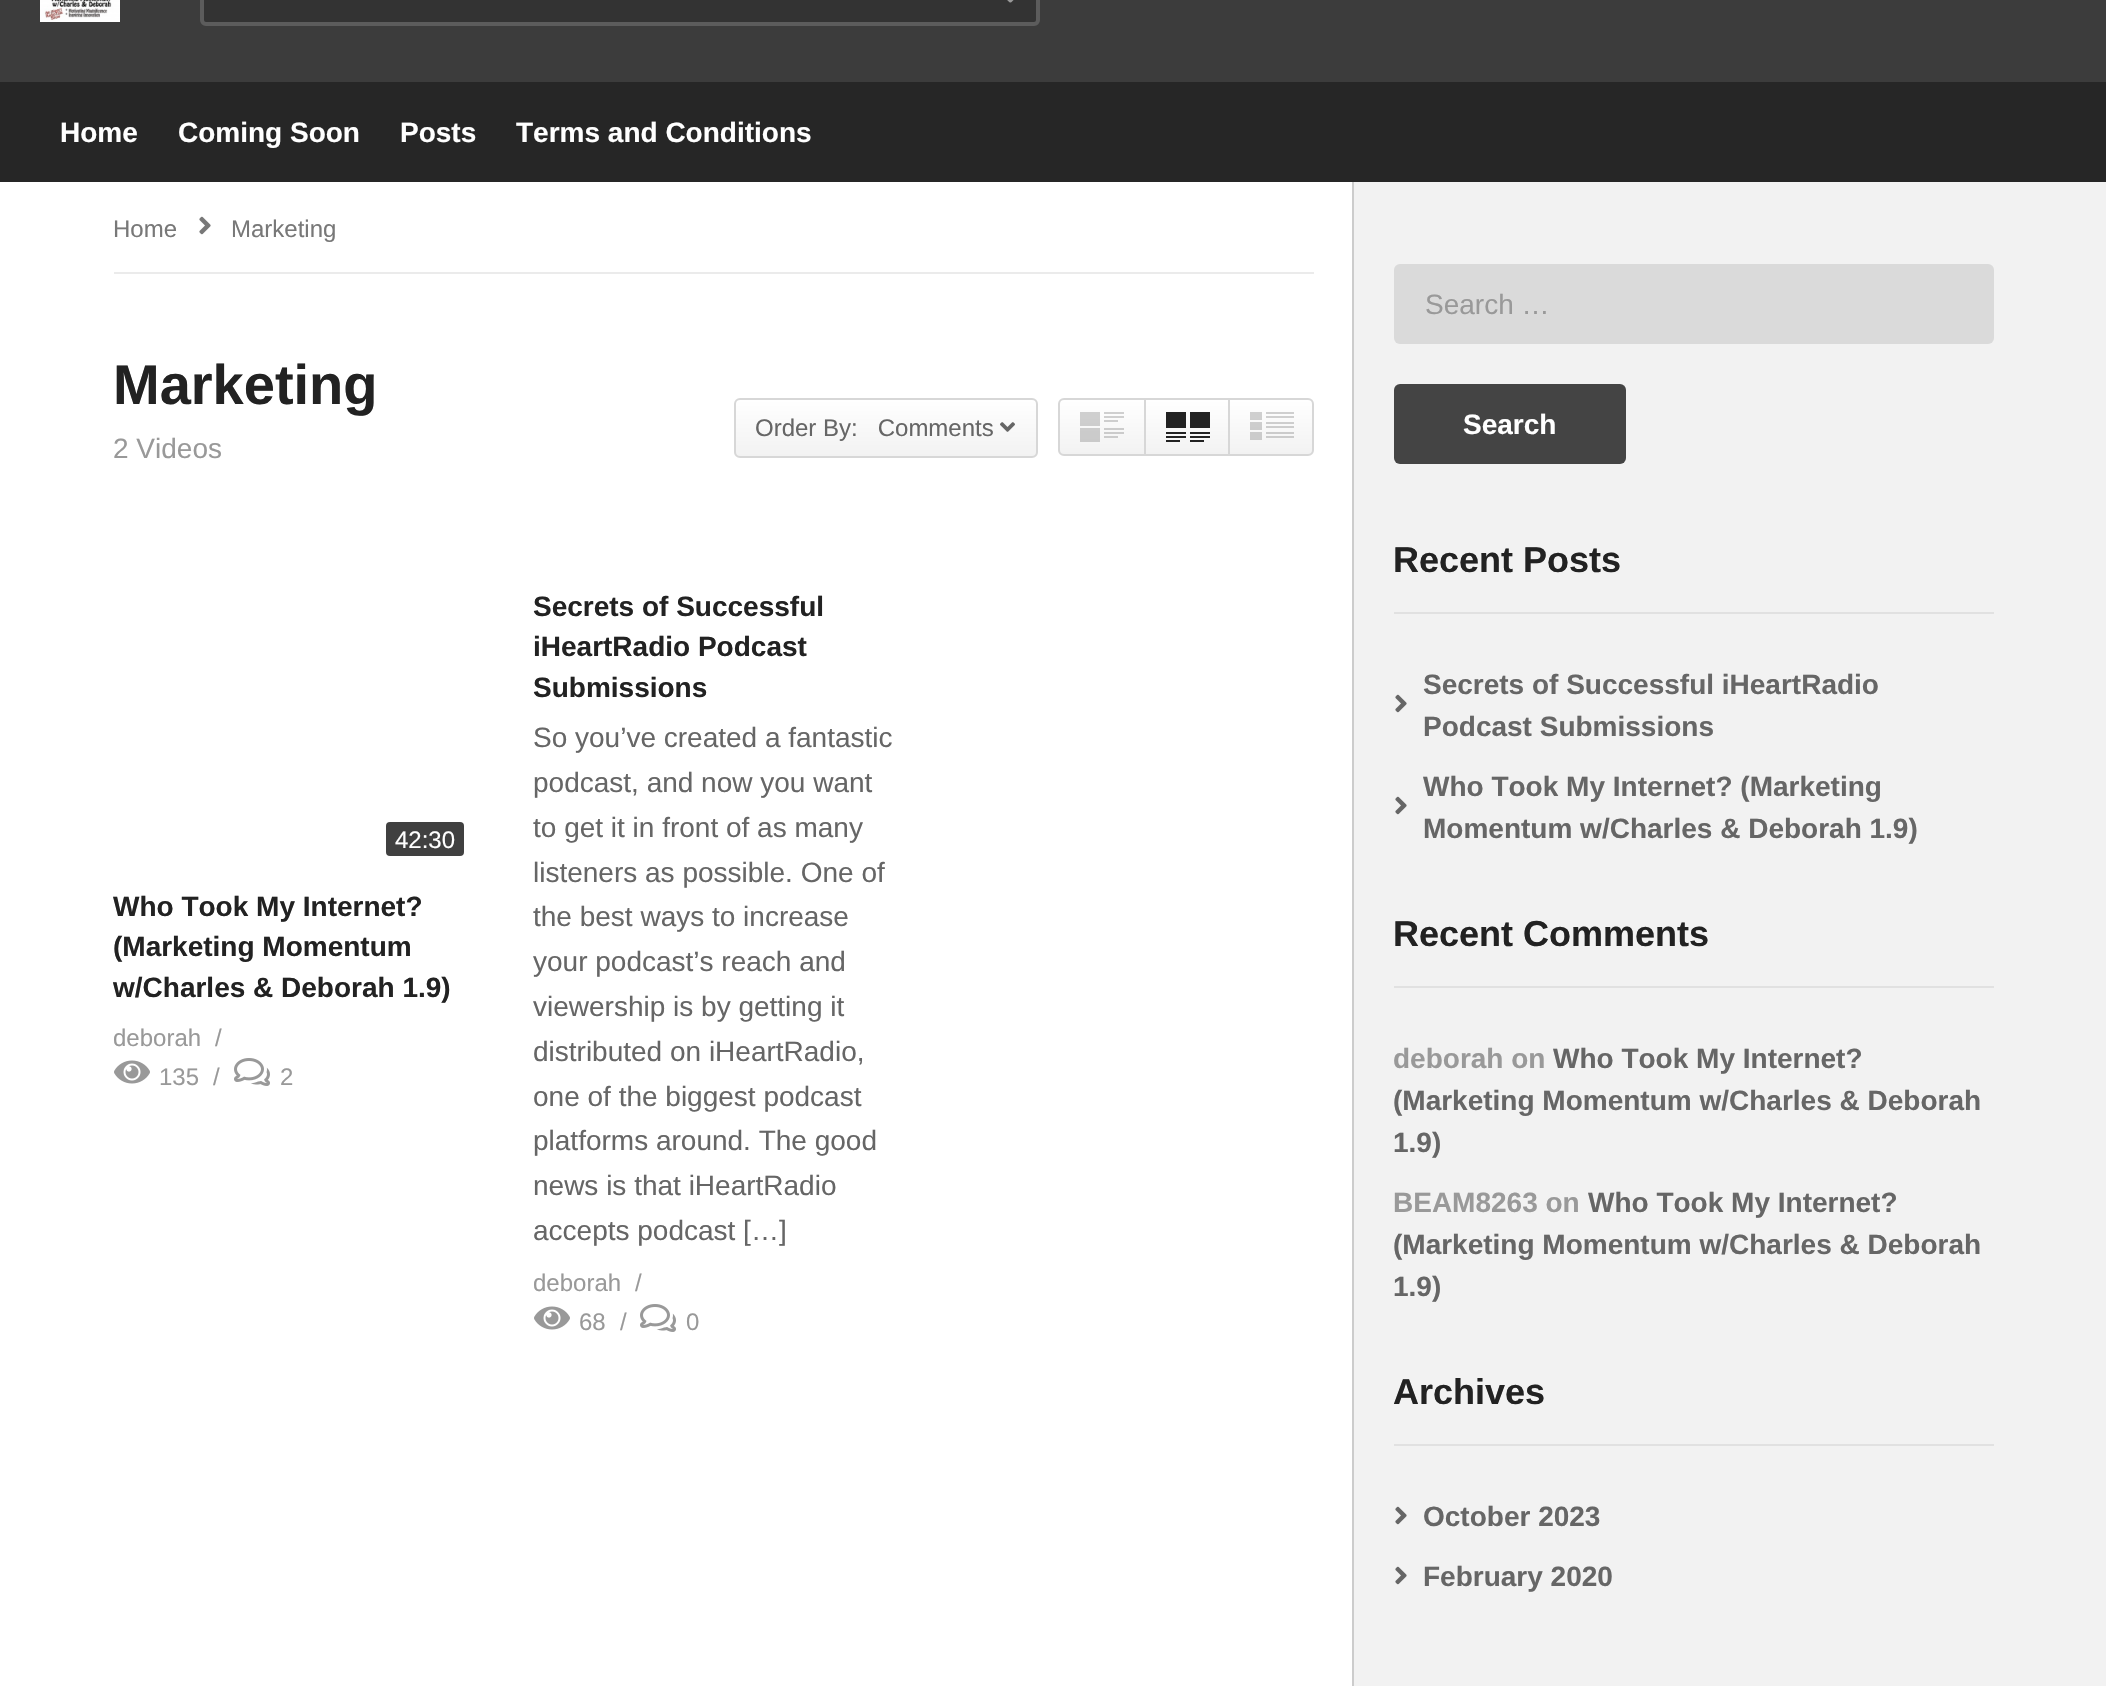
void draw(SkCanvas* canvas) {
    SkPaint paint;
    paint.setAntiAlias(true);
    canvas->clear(0xFFFFFFFF);
    paint.setColor(0xFF3C3C3C);
    canvas->drawRect(SkRect::MakeXYWH(0, 0, 2106, 82), paint);
    canvas->drawImageRect(SkImages::DeferredFromEncodedData(SkData::MakeFromFileName("img1.png")), SkRect::MakeXYWH(40, 0, 80, 22), SkSamplingOptions());
    paint.setColor(0xFF333333);
    canvas->drawRoundRect(SkRect::MakeXYWH(202, -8, 836, 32), 4, 4, paint);
    paint.setStyle(SkPaint::kStroke_Style);
    paint.setStrokeWidth(4);
    paint.setColor(0xFF5C5C5C);
    canvas->drawRoundRect(SkRect::MakeXYWH(202, -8, 836, 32), 4, 4, paint);
    canvas->drawImageRect(SkImages::DeferredFromEncodedData(SkData::MakeFromFileName("img2.png")), SkRect::MakeXYWH(1007, 0, 7, 3), SkSamplingOptions());
    paint.setStyle(SkPaint::kFill_Style);
    paint.setColor(0xFF262626);
    canvas->drawRect(SkRect::MakeXYWH(0, 82, 2106, 100), paint);
    SkFont font1(fontMgr->matchFamilyStyle("Liberation Sans", SkFontStyle::Bold()), 28);
    font1.setSubpixel(true);
    paint.setColor(0xFFFFFFFF);
    canvas->drawString("Home", 60, 142, font1, paint);
    canvas->drawString("Coming Soon", 178, 142, font1, paint);
    canvas->drawString("Posts", 400, 142, font1, paint);
    canvas->drawString("Terms and Conditions", 516, 142, font1, paint);
    paint.setColor(0xFFEBEBEB);
    canvas->drawRect(SkRect::MakeXYWH(114, 272, 1200, 2), paint);
    SkFont font2(fontMgr->matchFamilyStyle("Liberation Sans", SkFontStyle::Normal()), 24);
    font2.setSubpixel(true);
    paint.setColor(0xFF787878);
    canvas->drawString("Home", 113, 237, font2, paint);
    canvas->drawImageRect(SkImages::DeferredFromEncodedData(SkData::MakeFromFileName("img3.png")), SkRect::MakeXYWH(199, 216, 12, 19), SkSamplingOptions());
    canvas->drawString("Marketing", 231, 237, font2, paint);
    SkFont font3(fontMgr->matchFamilyStyle("Liberation Sans", SkFontStyle::Bold()), 56);
    font3.setSubpixel(true);
    paint.setColor(0xFF222222);
    canvas->drawString("Marketing", 113, 404, font3, paint);
    SkFont font4(fontMgr->matchFamilyStyle("Liberation Sans", SkFontStyle::Normal()), 28);
    font4.setSubpixel(true);
    paint.setColor(0xFF999999);
    canvas->drawString("2 Videos", 113, 458, font4, paint);
    canvas->save();
    canvas->clipPath(SkPathBuilder().moveTo(740, 398).lineTo(1032, 398).cubicTo(1035.5f, 398, 1038, 400.5f, 1038, 404).lineTo(1038, 452).cubicTo(1038, 455.5f, 1035.5f, 458, 1032, 458).lineTo(740, 458).cubicTo(736.5f, 458, 734, 455.5f, 734, 452).lineTo(734, 404).cubicTo(734, 400.5f, 736.5f, 398, 740, 398).close().detach(), true);
    {
        const SkColor colors[] = {0xFFFFFFFF, 0xFFF2F2F2};
        const float stops[] = {0, 1};
        const SkPoint ends[] = {{886, 400}, {886, 456}};
        paint.setShader(SkGradientShader::MakeLinear(ends, colors, stops, 2, SkTileMode::kClamp));
        paint.setAlpha(255);
    }
    canvas->drawRect(SkRect::MakeXYWH(734, 400, 304, 56), paint);
    canvas->restore();
    paint.setStyle(SkPaint::kStroke_Style);
    paint.setStrokeWidth(2);
    paint.setShader(nullptr);
    paint.setColor(0xFFD7D7D7);
    canvas->drawRoundRect(SkRect::MakeXYWH(735, 399, 302, 58), 5, 5, paint);
    paint.setStyle(SkPaint::kFill_Style);
    paint.setColor(0xFF666666);
    canvas->drawString("Order By:   Comments", 755, 436, font2, paint);
    canvas->drawImageRect(SkImages::DeferredFromEncodedData(SkData::MakeFromFileName("img4.png")), SkRect::MakeXYWH(1000, 422, 15, 10), SkSamplingOptions());
    canvas->save();
    canvas->clipPath(SkPathBuilder().moveTo(1064, 398).lineTo(1308, 398).cubicTo(1311.5f, 398, 1314, 400.5f, 1314, 404).lineTo(1314, 450).cubicTo(1314, 453.5f, 1311.5f, 456, 1308, 456).lineTo(1064, 456).cubicTo(1060.5f, 456, 1058, 453.5f, 1058, 450).lineTo(1058, 404).cubicTo(1058, 400.5f, 1060.5f, 398, 1064, 398).close().detach(), true);
    {
        const SkColor colors[] = {0xFFFFFFFF, 0xFFF2F2F2};
        const float stops[] = {0, 1};
        const SkPoint ends[] = {{1186, 400}, {1186, 454}};
        paint.setShader(SkGradientShader::MakeLinear(ends, colors, stops, 2, SkTileMode::kClamp));
        paint.setAlpha(255);
    }
    canvas->drawRect(SkRect::MakeXYWH(1058, 400, 256, 54), paint);
    canvas->restore();
    paint.setStyle(SkPaint::kStroke_Style);
    paint.setShader(nullptr);
    paint.setColor(0xFFD7D7D7);
    canvas->drawRoundRect(SkRect::MakeXYWH(1059, 399, 254, 56), 5, 5, paint);
    canvas->drawImageRect(SkImages::DeferredFromEncodedData(SkData::MakeFromFileName("img5.png")), SkRect::MakeXYWH(1080, 412, 44, 30), SkSamplingOptions());
    paint.setStyle(SkPaint::kFill_Style);
    canvas->drawRect(SkRect::MakeXYWH(1144, 400, 2, 54), paint);
    canvas->drawImageRect(SkImages::DeferredFromEncodedData(SkData::MakeFromFileName("img6.png")), SkRect::MakeXYWH(1166, 412, 44, 30), SkSamplingOptions());
    canvas->drawRect(SkRect::MakeXYWH(1228, 400, 2, 54), paint);
    canvas->drawImageRect(SkImages::DeferredFromEncodedData(SkData::MakeFromFileName("img7.png")), SkRect::MakeXYWH(1250, 412, 44, 28), SkSamplingOptions());
    paint.setColor(0xFF404040);
    canvas->drawRoundRect(SkRect::MakeXYWH(386, 822, 78, 34), 4, 4, paint);
    paint.setColor(0xFFFFFFFF);
    canvas->drawString("42:30", 395, 848, font2, paint);
    paint.setColor(0xFF222222);
    canvas->drawString("Who Took My Internet?", 113, 916, font1, paint);
    canvas->drawString("(Marketing Momentum", 113, 956, font1, paint);
    canvas->drawString("w/Charles & Deborah 1.9)", 113, 997, font1, paint);
    paint.setColor(0xFF999999);
    canvas->drawString("deborah", 113, 1046, font2, paint);
    canvas->drawString("/", 215, 1046, font2, paint);
    canvas->drawImageRect(SkImages::DeferredFromEncodedData(SkData::MakeFromFileName("img8.png")), SkRect::MakeXYWH(114, 1060, 36, 24), SkSamplingOptions());
    canvas->drawString("135", 159, 1085, font2, paint);
    canvas->drawString("/", 213, 1085, font2, paint);
    canvas->drawImageRect(SkImages::DeferredFromEncodedData(SkData::MakeFromFileName("img9.png")), SkRect::MakeXYWH(234, 1058, 36, 28), SkSamplingOptions());
    canvas->drawString("2", 280, 1085, font2, paint);
    paint.setColor(0xFF222222);
    canvas->drawString("Secrets of Successful", 533, 616, font1, paint);
    canvas->drawString("iHeartRadio Podcast", 533, 656, font1, paint);
    canvas->drawString("Submissions", 533, 697, font1, paint);
    paint.setColor(0xFF666666);
    canvas->drawString("So you’ve created a fantastic", 533, 747, font4, paint);
    canvas->drawString("podcast, and now you want", 533, 792, font4, paint);
    canvas->drawString("to get it in front of as many", 533, 837, font4, paint);
    canvas->drawString("listeners as possible. One of", 533, 882, font4, paint);
    canvas->drawString("the best ways to increase", 533, 926, font4, paint);
    canvas->drawString("your podcast’s reach and", 533, 971, font4, paint);
    canvas->drawString("viewership is by getting it", 533, 1016, font4, paint);
    canvas->drawString("distributed on iHeartRadio,", 533, 1061, font4, paint);
    canvas->drawString("one of the biggest podcast", 533, 1106, font4, paint);
    canvas->drawString("platforms around. The good", 533, 1150, font4, paint);
    canvas->drawString("news is that iHeartRadio", 533, 1195, font4, paint);
    canvas->drawString("accepts podcast […]", 533, 1240, font4, paint);
    paint.setColor(0xFF999999);
    canvas->drawString("deborah", 533, 1291, font2, paint);
    canvas->drawString("/", 635, 1291, font2, paint);
    canvas->drawImageRect(SkImages::DeferredFromEncodedData(SkData::MakeFromFileName("img8.png")), SkRect::MakeXYWH(534, 1306, 36, 24), SkSamplingOptions());
    canvas->drawString("68", 579, 1330, font2, paint);
    canvas->drawString("/", 620, 1330, font2, paint);
    canvas->drawImageRect(SkImages::DeferredFromEncodedData(SkData::MakeFromFileName("img9.png")), SkRect::MakeXYWH(640, 1304, 36, 28), SkSamplingOptions());
    canvas->drawString("0", 686, 1330, font2, paint);
    paint.setColor(0xFFCCCCCC);
    canvas->drawRect(SkRect::MakeXYWH(1352, 182, 2, 1504), paint);
    paint.setColor(0xFFF2F2F2);
    canvas->drawRect(SkRect::MakeXYWH(1354, 182, 752, 1504), paint);
    paint.setColor(0xFFDADADA);
    canvas->drawRoundRect(SkRect::MakeXYWH(1394, 264, 600, 80), 6, 6, paint);
    paint.setColor(0xFF999999);
    canvas->drawString("Search …", 1425, 314, font4, paint);
    paint.setColor(0xFF444444);
    canvas->drawRoundRect(SkRect::MakeXYWH(1394, 384, 232, 80), 6, 6, paint);
    paint.setColor(0xFFFFFFFF);
    canvas->drawString("Search", 1463, 434, font1, paint);
    paint.setColor(0xFFE1E1E1);
    canvas->drawRect(SkRect::MakeXYWH(1394, 612, 600, 2), paint);
    SkFont font5(fontMgr->matchFamilyStyle("Liberation Sans", SkFontStyle::Bold()), 36);
    font5.setSubpixel(true);
    paint.setColor(0xFF222222);
    canvas->drawString("Recent Posts", 1393, 572, font5, paint);
    paint.setColor(0xFF666666);
    canvas->drawString("Secrets of Successful iHeartRadio", 1423, 694, font1, paint);
    canvas->drawImageRect(SkImages::DeferredFromEncodedData(SkData::MakeFromFileName("img10.png")), SkRect::MakeXYWH(1395, 694, 12, 19), SkSamplingOptions());
    canvas->drawString("Podcast Submissions", 1423, 736, font1, paint);
    canvas->drawString("Who Took My Internet? (Marketing", 1423, 796, font1, paint);
    canvas->drawImageRect(SkImages::DeferredFromEncodedData(SkData::MakeFromFileName("img10.png")), SkRect::MakeXYWH(1395, 796, 12, 19), SkSamplingOptions());
    canvas->drawString("Momentum w/Charles & Deborah 1.9)", 1423, 838, font1, paint);
    paint.setColor(0xFFE1E1E1);
    canvas->drawRect(SkRect::MakeXYWH(1394, 986, 600, 2), paint);
    paint.setColor(0xFF222222);
    canvas->drawString("Recent Comments", 1393, 946, font5, paint);
    paint.setColor(0xFF999999);
    canvas->drawString("deborah on", 1393, 1068, font1, paint);
    paint.setColor(0xFF666666);
    canvas->drawString("Who Took My Internet?", 1553, 1068, font1, paint);
    canvas->drawString("(Marketing Momentum w/Charles & Deborah", 1393, 1110, font1, paint);
    canvas->drawString("1.9)", 1393, 1152, font1, paint);
    paint.setColor(0xFF999999);
    canvas->drawString("BEAM8263 on", 1393, 1212, font1, paint);
    paint.setColor(0xFF666666);
    canvas->drawString("Who Took My Internet?", 1588, 1212, font1, paint);
    canvas->drawString("(Marketing Momentum w/Charles & Deborah", 1393, 1254, font1, paint);
    canvas->drawString("1.9)", 1393, 1296, font1, paint);
    paint.setColor(0xFFE1E1E1);
    canvas->drawRect(SkRect::MakeXYWH(1394, 1444, 600, 2), paint);
    paint.setColor(0xFF222222);
    canvas->drawString("Archives", 1393, 1404, font5, paint);
    canvas->drawImageRect(SkImages::DeferredFromEncodedData(SkData::MakeFromFileName("img10.png")), SkRect::MakeXYWH(1395, 1506, 12, 19), SkSamplingOptions());
    paint.setColor(0xFF666666);
    canvas->drawString("October 2023", 1423, 1526, font1, paint);
    canvas->drawImageRect(SkImages::DeferredFromEncodedData(SkData::MakeFromFileName("img10.png")), SkRect::MakeXYWH(1395, 1566, 12, 19), SkSamplingOptions());
    canvas->drawString("February 2020", 1423, 1586, font1, paint);
}
